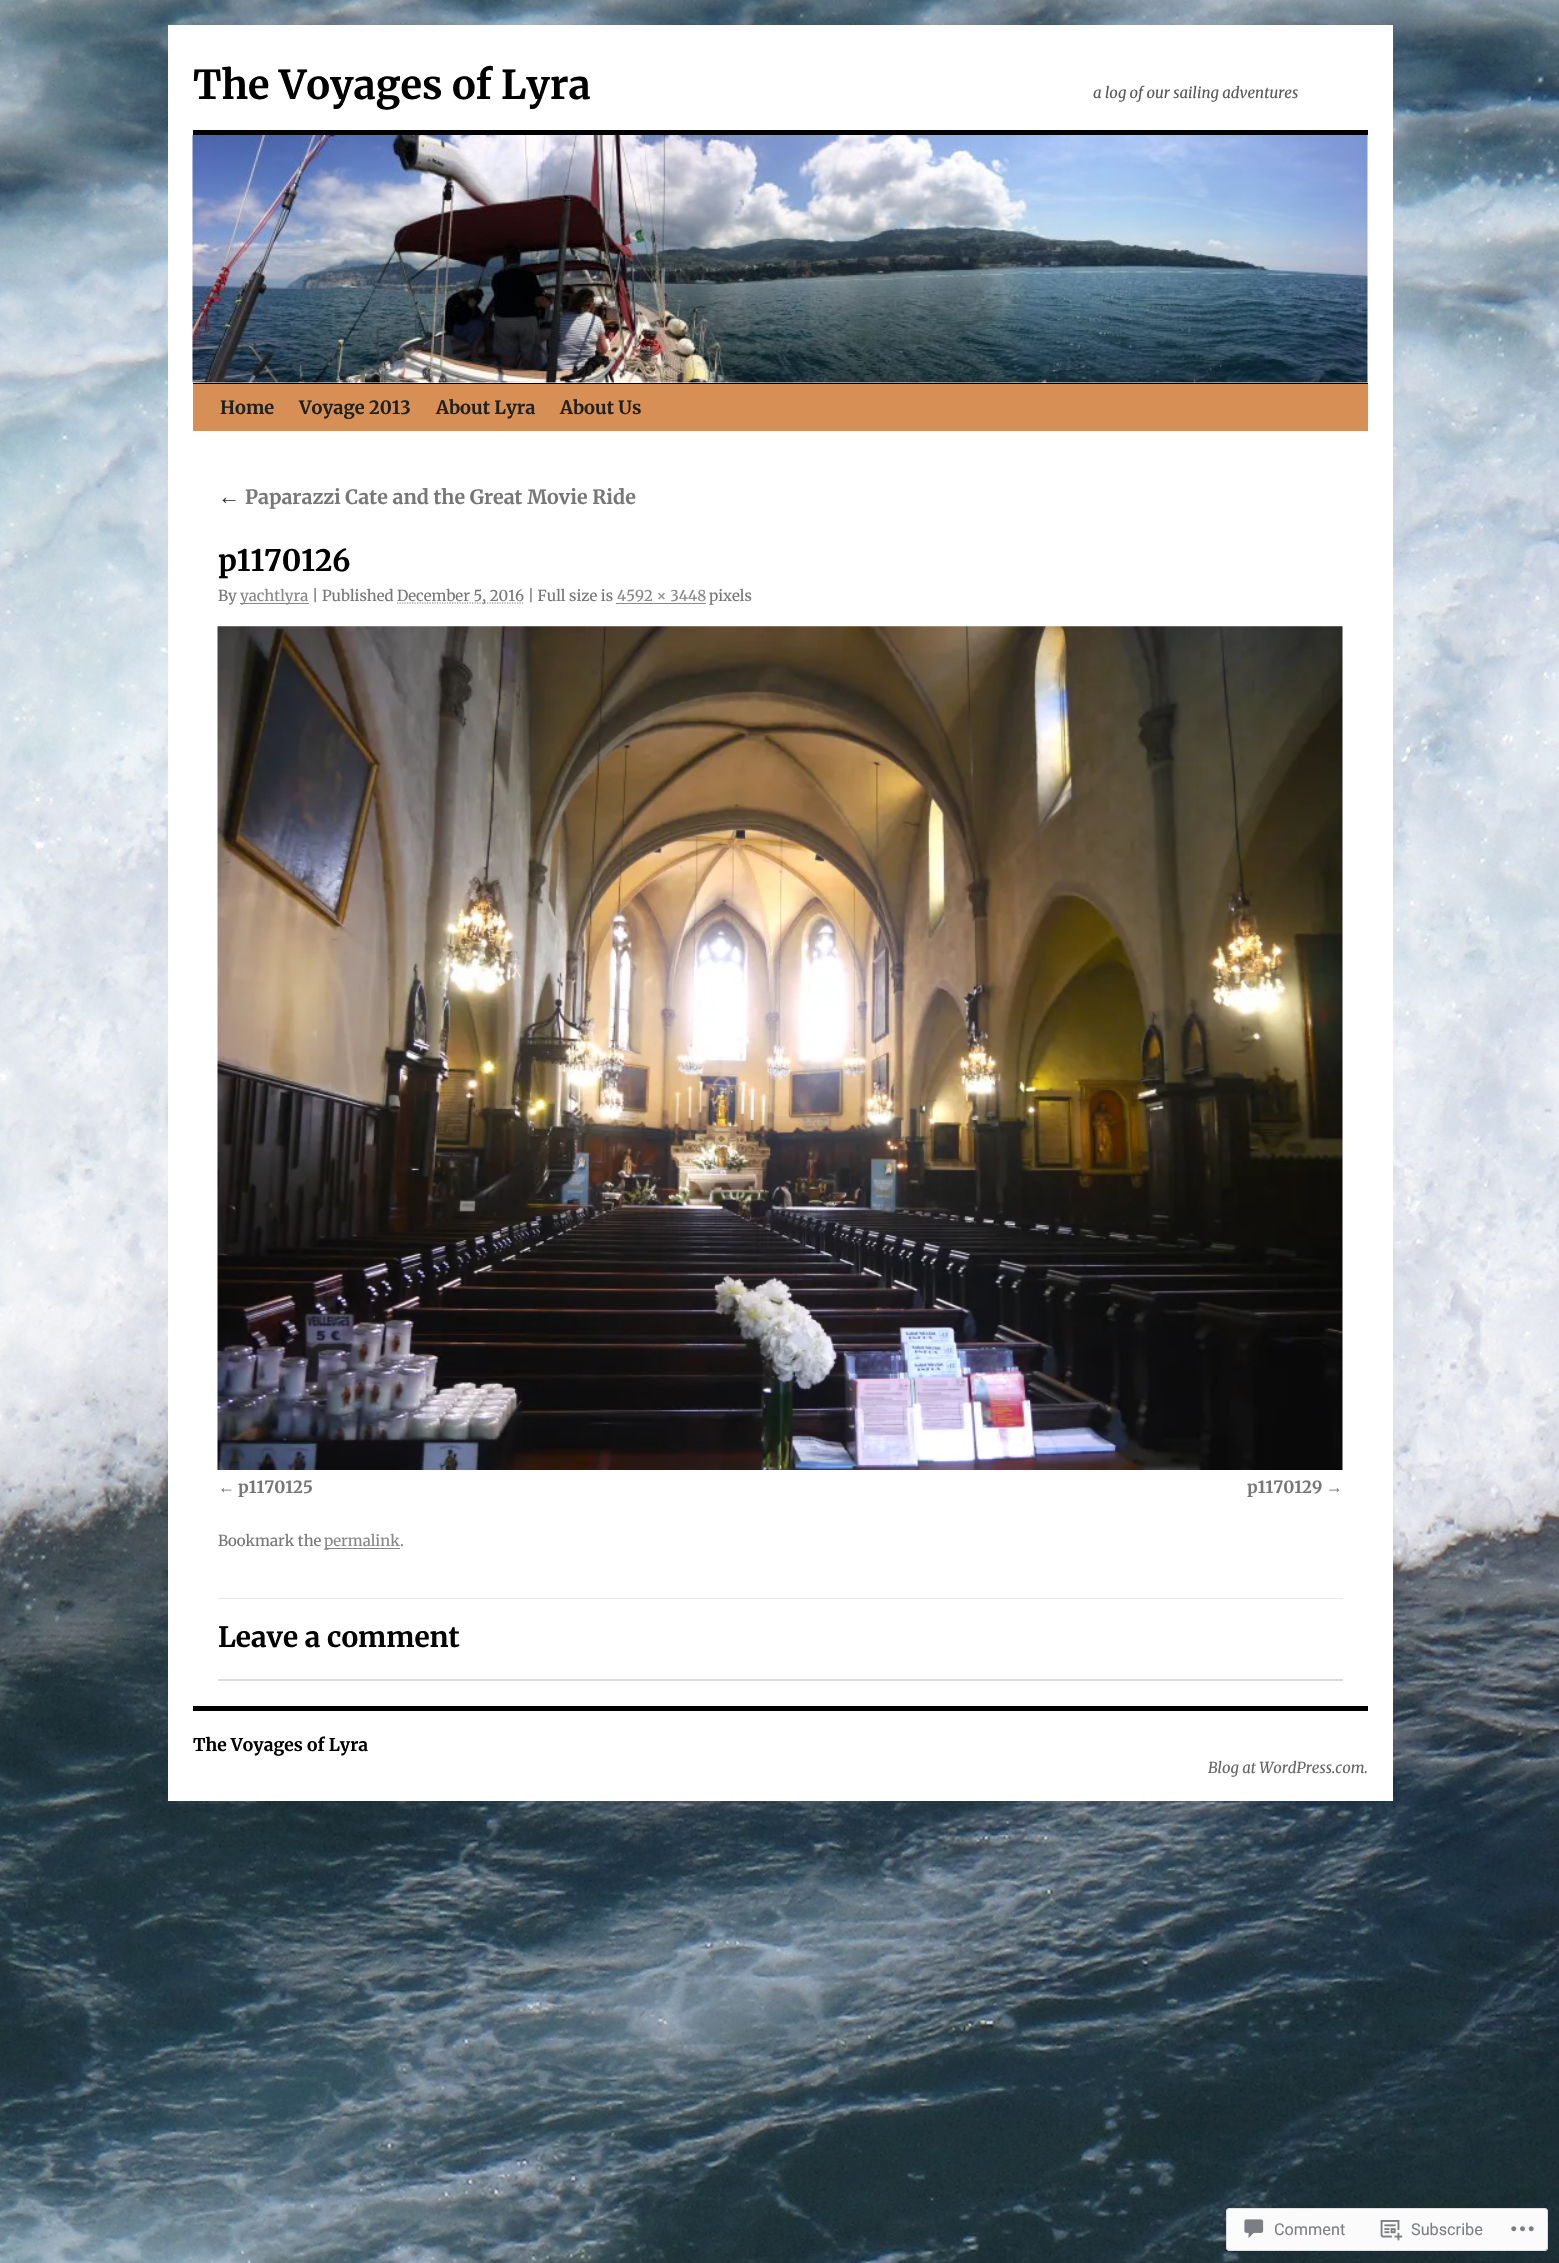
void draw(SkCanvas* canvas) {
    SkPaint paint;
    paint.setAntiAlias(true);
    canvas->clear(0xFFFFFFFF);
    canvas->drawImageRect(SkImages::DeferredFromEncodedData(SkData::MakeFromFileName("img1.png")), SkRect::MakeXYWH(0, 0, 1559, 2263), SkSamplingOptions());
    paint.setColor(0xFFFFFFFF);
    canvas->drawRect(SkRect::MakeXYWH(168, 25, 1225, 1776), paint);
    SkFont font1(fontMgr->matchFamilyStyle("Merriweather", SkFontStyle::Bold()), 39.75f);
    font1.setSubpixel(true);
    paint.setColor(0xFF000000);
    canvas->drawString("The Voyages of Lyra", 193, 99, font1, paint);
    SkFont font2(fontMgr->matchFamilyStyle("Merriweather", SkFontStyle::Italic()), 15);
    font2.setSubpixel(true);
    paint.setColor(0xFF595959);
    canvas->drawString("a log of our sailing adventures", 1093, 98, font2, paint);
    paint.setColor(0xFF000000);
    canvas->drawRect(SkRect::MakeXYWH(193, 130, 1175, 5), paint);
    canvas->drawRect(SkRect::MakeXYWH(193, 383, 1175, 1), paint);
    canvas->drawImageRect(SkImages::DeferredFromEncodedData(SkData::MakeFromFileName("img2.png")), SkRect::MakeXYWH(192, 135, 1176, 248), SkSamplingOptions());
    paint.setColor(0xFFD78F55);
    canvas->drawRect(SkRect::MakeXYWH(193, 384, 1175, 47), paint);
    SkFont font3(fontMgr->matchFamilyStyle("Merriweather", SkFontStyle::Bold()), 18.25f);
    font3.setSubpixel(true);
    paint.setColor(0xFF212121);
    canvas->drawString("Home", 220, 414, font3, paint);
    canvas->drawString("Voyage 2013", 299, 414, font3, paint);
    canvas->drawString("About Lyra", 436, 414, font3, paint);
    canvas->drawString("About Us", 560, 414, font3, paint);
    SkFont font4(fontMgr->matchFamilyStyle("Liberation Serif", SkFontStyle::Bold()), 22);
    font4.setSubpixel(true);
    paint.setColor(0xFF333333);
    canvas->drawString("←", 218, 504, font4, paint);
    SkFont font5(fontMgr->matchFamilyStyle("Merriweather", SkFontStyle::Bold()), 19.6f);
    font5.setSubpixel(true);
    paint.setColor(0xFF777777);
    canvas->drawString("Paparazzi Cate and the Great Movie Ride", 245, 504, font5, paint);
    SkFont font6(fontMgr->matchFamilyStyle("Merriweather", SkFontStyle::Bold()), 29.5f);
    font6.setSubpixel(true);
    paint.setColor(0xFF000000);
    canvas->drawString("p1170126", 218, 571, font6, paint);
    SkFont font7(fontMgr->matchFamilyStyle("Merriweather", SkFontStyle::Normal()), 15);
    font7.setSubpixel(true);
    paint.setColor(0xFF777777);
    canvas->drawString("By", 218, 601, font7, paint);
    paint.setColor(0xFF888888);
    canvas->drawRect(SkRect::MakeXYWH(240, 603, 69, 1), paint);
    canvas->drawString("yachtlyra", 240, 601, font7, paint);
    paint.setColor(0xFF777777);
    canvas->drawString("| Published", 312, 601, font7, paint);
    paint.setStyle(SkPaint::kStroke_Style);
    paint.setStrokeWidth(1.2f);
    paint.setPathEffect(SkDashPathEffect::Make({{1.25f, 1.25f}}, 0));
    canvas->drawPath(SkPathBuilder().moveTo(397, 603).lineTo(524, 603).detach(), paint);
    paint.setPathEffect(nullptr);
    paint.setStyle(SkPaint::kFill_Style);
    canvas->drawString("December 5, 2016 | Full size is", 397, 601, font7, paint);
    paint.setColor(0xFF888888);
    canvas->drawString("4592 × 3448", 617, 601, font7, paint);
    canvas->drawRect(SkRect::MakeXYWH(616, 603, 90, 1), paint);
    paint.setColor(0xFF777777);
    canvas->drawString("pixels", 709, 601, font7, paint);
    canvas->drawImageRect(SkImages::DeferredFromEncodedData(SkData::MakeFromFileName("img3.png")), SkRect::MakeXYWH(217, 626, 1126, 844), SkSamplingOptions());
    SkFont font8(fontMgr->matchFamilyStyle("Liberation Serif", SkFontStyle::Bold()), 16.75f);
    font8.setSubpixel(true);
    canvas->drawString("←", 218, 1493, font8, paint);
    SkFont font9(fontMgr->matchFamilyStyle("Merriweather", SkFontStyle::Bold()), 16.75f);
    font9.setSubpixel(true);
    canvas->drawString("p1170125", 238, 1493, font9, paint);
    canvas->drawString("p1170129", 1247, 1493, font9, paint);
    canvas->drawString("→", 1326, 1493, font8, paint);
    canvas->drawString("Bookmark the", 218, 1546, font7, paint);
    paint.setColor(0xFF888888);
    canvas->drawRect(SkRect::MakeXYWH(325, 1548, 75, 1), paint);
    canvas->drawString("permalink", 324, 1546, font7, paint);
    paint.setColor(0xFF777777);
    canvas->drawString(".", 400, 1546, font7, paint);
    paint.setColor(0xFFE7E7E7);
    canvas->drawRect(SkRect::MakeXYWH(218, 1598, 1125, 1), paint);
    SkFont font10(fontMgr->matchFamilyStyle("Merriweather", SkFontStyle::Bold()), 28);
    font10.setSubpixel(true);
    paint.setColor(0xFF000000);
    canvas->drawString("Leave a comment", 218, 1647, font10, paint);
    paint.setColor(0xFFDCDCDE);
    canvas->drawRect(SkRect::MakeXYWH(218, 1679, 1125, 2), paint);
    paint.setColor(0xFF000000);
    canvas->drawRect(SkRect::MakeXYWH(193, 1706, 1175, 5), paint);
    SkFont font11(fontMgr->matchFamilyStyle("Merriweather", SkFontStyle::Bold()), 17.5f);
    font11.setSubpixel(true);
    canvas->drawString("The Voyages of Lyra", 193, 1751, font11, paint);
    paint.setColor(0xFF666666);
    canvas->drawString("Blog at WordPress.com.", 1208, 1773, font2, paint);
    paint.setColor(0xFAFFFFFF);
    canvas->drawRoundRect(SkRect::MakeXYWH(1226, 2208, 322, 43), 4, 4, paint);
    paint.setStyle(SkPaint::kStroke_Style);
    paint.setStrokeWidth(1);
    paint.setColor(0xFADCDCDE);
    canvas->drawRoundRect(SkRect::MakeXYWH(1226.5f, 2208.5f, 321, 42), 3.5f, 3.5f, paint);
    canvas->drawImageRect(SkImages::DeferredFromEncodedData(SkData::MakeFromFileName("img4.png")), SkRect::MakeXYWH(1244, 2219, 20, 19), SkSamplingOptions());
    SkFont font12(fontMgr->matchFamilyStyle("Roboto", SkFontStyle::Normal()), 16.25f);
    font12.setSubpixel(true);
    paint.setStyle(SkPaint::kFill_Style);
    paint.setColor(0xFF7B7F84);
    canvas->drawString("Comment", 1274, 2235, font12, paint);
    canvas->drawImageRect(SkImages::DeferredFromEncodedData(SkData::MakeFromFileName("img5.png")), SkRect::MakeXYWH(1380, 2220, 23, 21), SkSamplingOptions());
    canvas->drawString("Subscribe", 1411, 2235, font12, paint);
    canvas->drawImageRect(SkImages::DeferredFromEncodedData(SkData::MakeFromFileName("img6.png")), SkRect::MakeXYWH(1511, 2226, 23, 6), SkSamplingOptions());
}
